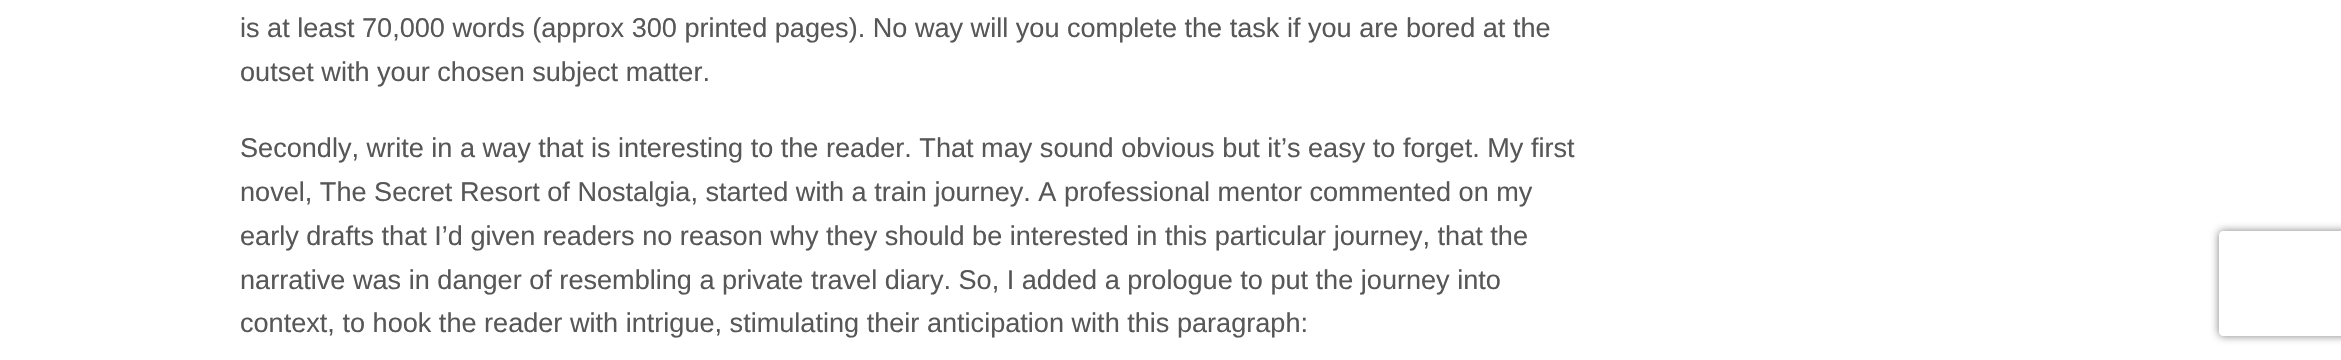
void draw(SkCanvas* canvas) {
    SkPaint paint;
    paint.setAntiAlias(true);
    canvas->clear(0xFFFFFFFF);
    SkFont font1(fontMgr->matchFamilyStyle("Liberation Sans", SkFontStyle::Normal()), 27.1f);
    font1.setSubpixel(true);
    paint.setColor(0xFF575757);
    canvas->drawString("is at least 70,000 words (approx 300 printed pages). No way will you complete the task if you are bored at the", 240, 37, font1, paint);
    canvas->drawString("outset with your chosen subject matter.", 240, 81, font1, paint);
    canvas->drawString("Secondly, write in a way that is interesting to the reader. That may sound obvious but it’s easy to forget. My first", 240, 157, font1, paint);
    canvas->drawString("novel, The Secret Resort of Nostalgia, started with a train journey. A professional mentor commented on my", 240, 201, font1, paint);
    canvas->drawString("early drafts that I’d given readers no reason why they should be interested in this particular journey, that the", 240, 245, font1, paint);
    canvas->drawString("narrative was in danger of resembling a private travel diary. So, I added a prologue to put the journey into", 240, 289, font1, paint);
    canvas->drawString("context, to hook the reader with intrigue, stimulating their anticipation with this paragraph:", 240, 332, font1, paint);
    canvas->save();
    canvas->clipPath(SkPathBuilder(SkPathFillType::kEvenOdd).moveTo(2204, 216).lineTo(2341, 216).lineTo(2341, 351).lineTo(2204, 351).close().moveTo(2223, 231).lineTo(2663, 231).cubicTo(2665, 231, 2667, 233, 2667, 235).lineTo(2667, 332).cubicTo(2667, 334, 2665, 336, 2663, 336).lineTo(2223, 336).cubicTo(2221, 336, 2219, 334, 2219, 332).lineTo(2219, 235).cubicTo(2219, 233, 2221, 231, 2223, 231).close().detach(), true);
    paint.setColor(0xFF808080);
    paint.setMaskFilter(SkMaskFilter::MakeBlur(kNormal_SkBlurStyle, 4.5f));
    canvas->drawRoundRect(SkRect::MakeXYWH(2219, 231, 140, 105), 4, 4, paint);
    paint.setMaskFilter(nullptr);
    canvas->restore();
}
